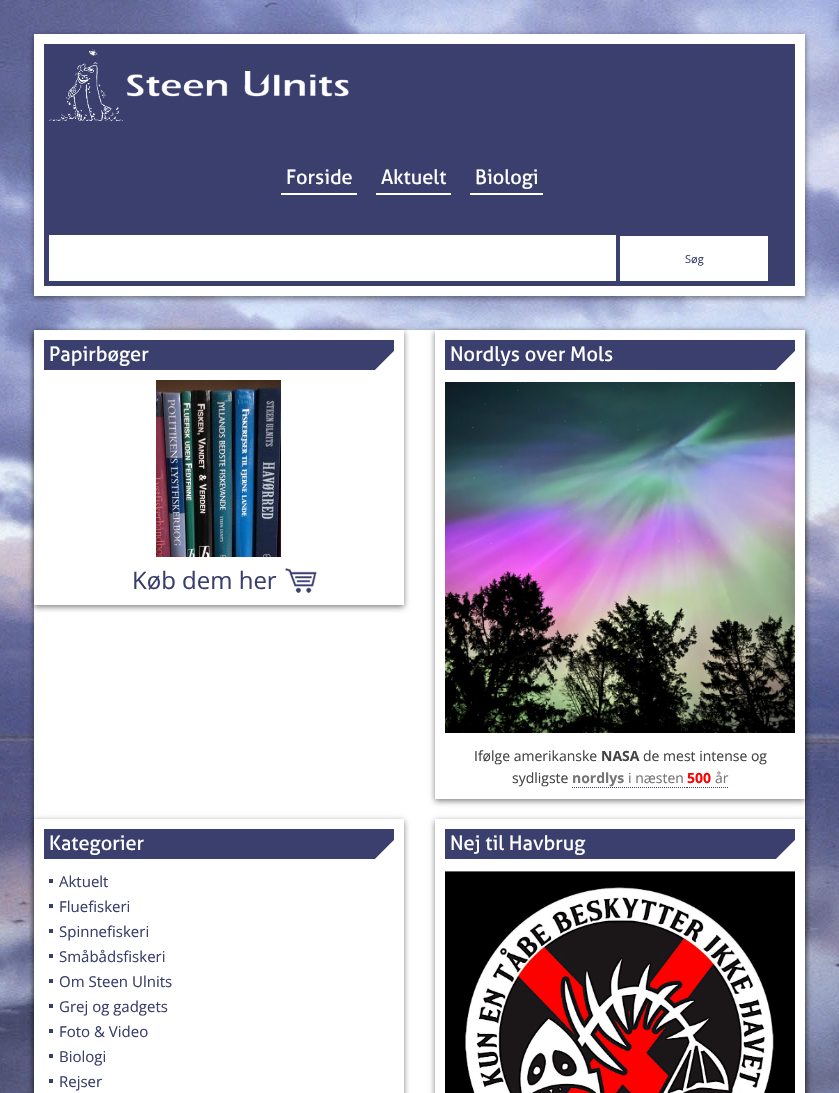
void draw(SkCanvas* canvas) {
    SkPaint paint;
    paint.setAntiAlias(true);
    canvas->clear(0xFFFFFFFF);
    canvas->drawImageRect(SkImages::DeferredFromEncodedData(SkData::MakeFromFileName("img1.png")), SkRect::MakeXYWH(0, 0, 839, 1093), SkSamplingOptions());
    paint.setColor(0x80000000);
    paint.setMaskFilter(SkMaskFilter::MakeBlur(kNormal_SkBlurStyle, 3));
    canvas->drawRect(SkRect::MakeXYWH(34, 36, 771, 262), paint);
    paint.setMaskFilter(nullptr);
    paint.setColor(0xFF3A3F6E);
    canvas->drawRect(SkRect::MakeXYWH(39, 39, 761, 252), paint);
    paint.setStyle(SkPaint::kStroke_Style);
    paint.setStrokeWidth(10);
    paint.setColor(0xFFFFFFFF);
    canvas->drawRect(SkRect::MakeXYWH(39, 39, 761, 252), paint);
    canvas->drawImageRect(SkImages::DeferredFromEncodedData(SkData::MakeFromFileName("img2.png")), SkRect::MakeXYWH(49, 49, 300, 72), SkSamplingOptions());
    paint.setStyle(SkPaint::kFill_Style);
    canvas->drawRect(SkRect::MakeXYWH(281, 193, 76, 2), paint);
    SkFont font1(fontMgr->matchFamilyStyle("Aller", SkFontStyle::Normal()), 20);
    font1.setSubpixel(true);
    canvas->drawString("Forside", 286, 184, font1, paint);
    canvas->drawRect(SkRect::MakeXYWH(376, 193, 75, 2), paint);
    canvas->drawString("Aktuelt", 381, 184, font1, paint);
    canvas->drawRect(SkRect::MakeXYWH(470, 193, 73, 2), paint);
    canvas->drawString("Biologi", 475, 184, font1, paint);
    canvas->drawRect(SkRect::MakeXYWH(49, 235, 567, 46), paint);
    canvas->drawRect(SkRect::MakeXYWH(620, 236, 148, 45), paint);
    SkFont font2(fontMgr->matchFamilyStyle("Open Sans", SkFontStyle::Normal()), 11);
    font2.setSubpixel(true);
    paint.setColor(0xFF393F6D);
    canvas->drawString("Søg", 685, 263, font2, paint);
    paint.setColor(0x80000000);
    paint.setMaskFilter(SkMaskFilter::MakeBlur(kNormal_SkBlurStyle, 3));
    canvas->drawRect(SkRect::MakeXYWH(34, 332, 771, 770), paint);
    paint.setMaskFilter(nullptr);
    paint.setColor(0xFFFFFFFF);
    canvas->drawRect(SkRect::MakeXYWH(34, 330, 771, 763), paint);
    canvas->save();
    canvas->clipPath(SkPathBuilder(SkPathFillType::kEvenOdd).moveTo(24, 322).lineTo(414, 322).lineTo(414, 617).lineTo(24, 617).close().moveTo(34, 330).lineTo(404, 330).lineTo(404, 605).lineTo(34, 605).close().detach(), true);
    paint.setColor(0x80000000);
    paint.setMaskFilter(SkMaskFilter::MakeBlur(kNormal_SkBlurStyle, 3));
    canvas->drawRect(SkRect::MakeXYWH(34, 332, 370, 275), paint);
    paint.setMaskFilter(nullptr);
    canvas->restore();
    paint.setColor(0xFF3A3F6E);
    canvas->drawRect(SkRect::MakeXYWH(44, 340, 350, 30), paint);
    canvas->drawImageRect(SkImages::DeferredFromEncodedData(SkData::MakeFromFileName("img3.png")), SkRect::MakeXYWH(375, 351, 19, 19), SkSamplingOptions());
    paint.setColor(0xFFFFFFFF);
    canvas->drawString("Papirbøger", 49, 361, font1, paint);
    canvas->drawImageRect(SkImages::DeferredFromEncodedData(SkData::MakeFromFileName("img4.png")), SkRect::MakeXYWH(156, 380, 125, 177), SkSamplingOptions());
    SkFont font3(fontMgr->matchFamilyStyle("Open Sans", SkFontStyle::Normal()), 24);
    font3.setSubpixel(true);
    paint.setColor(0xFF393F6D);
    canvas->drawString("Køb dem her", 132, 589, font3, paint);
    canvas->drawImageRect(SkImages::DeferredFromEncodedData(SkData::MakeFromFileName("img5.png")), SkRect::MakeXYWH(285, 568, 32, 25), SkSamplingOptions());
    canvas->save();
    canvas->clipPath(SkPathBuilder(SkPathFillType::kEvenOdd).moveTo(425, 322).lineTo(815, 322).lineTo(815, 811).lineTo(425, 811).close().moveTo(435, 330).lineTo(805, 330).lineTo(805, 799).lineTo(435, 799).close().detach(), true);
    paint.setColor(0x80000000);
    paint.setMaskFilter(SkMaskFilter::MakeBlur(kNormal_SkBlurStyle, 3));
    canvas->drawRect(SkRect::MakeXYWH(435, 332, 370, 469), paint);
    paint.setMaskFilter(nullptr);
    canvas->restore();
    paint.setColor(0xFF3A3F6E);
    canvas->drawRect(SkRect::MakeXYWH(445, 340, 350, 30), paint);
    canvas->drawImageRect(SkImages::DeferredFromEncodedData(SkData::MakeFromFileName("img3.png")), SkRect::MakeXYWH(776, 351, 19, 19), SkSamplingOptions());
    paint.setColor(0xFFFFFFFF);
    canvas->drawString("Nordlys over Mols", 450, 361, font1, paint);
    canvas->drawImageRect(SkImages::DeferredFromEncodedData(SkData::MakeFromFileName("img6.png")), SkRect::MakeXYWH(445, 382, 350, 351), SkSamplingOptions());
    SkFont font4(fontMgr->matchFamilyStyle("Open Sans", SkFontStyle::Normal()), 14);
    font4.setSubpixel(true);
    paint.setColor(0xFF444444);
    canvas->drawString("Ifølge amerikanske", 474, 761, font4, paint);
    SkFont font5(fontMgr->matchFamilyStyle("Open Sans", SkFontStyle::Bold()), 14);
    font5.setSubpixel(true);
    canvas->drawString("NASA", 601, 761, font5, paint);
    canvas->drawString("de mest intense og", 643, 761, font4, paint);
    canvas->drawString("sydligste", 512, 783, font4, paint);
    paint.setColor(0xFF757575);
    canvas->drawString("nordlys", 572, 783, font5, paint);
    paint.setStyle(SkPaint::kStroke_Style);
    paint.setStrokeWidth(1);
    paint.setColor(0xFF393F6D);
    paint.setPathEffect(SkDashPathEffect::Make({{1, 1}}, 0));
    canvas->drawPath(SkPathBuilder().moveTo(572, 787.5f).lineTo(624, 787.5f).detach(), paint);
    paint.setPathEffect(nullptr);
    paint.setPathEffect(SkDashPathEffect::Make({{1, 1}}, 0));
    canvas->drawPath(SkPathBuilder().moveTo(624, 787.5f).lineTo(687, 787.5f).detach(), paint);
    paint.setPathEffect(nullptr);
    paint.setStyle(SkPaint::kFill_Style);
    paint.setColor(0xFF757575);
    canvas->drawString("i næsten", 628, 783, font4, paint);
    paint.setColor(0xFFFF0000);
    canvas->drawString("500", 687, 783, font5, paint);
    paint.setStyle(SkPaint::kStroke_Style);
    paint.setColor(0xFF393F6D);
    paint.setPathEffect(SkDashPathEffect::Make({{1, 1}}, 0));
    canvas->drawPath(SkPathBuilder().moveTo(687, 787.5f).lineTo(711, 787.5f).moveTo(711, 787.5f).lineTo(729, 787.5f).detach(), paint);
    paint.setPathEffect(nullptr);
    paint.setStyle(SkPaint::kFill_Style);
    paint.setColor(0xFF757575);
    canvas->drawString("år", 715, 783, font4, paint);
    canvas->save();
    canvas->clipPath(SkPathBuilder(SkPathFillType::kEvenOdd).moveTo(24, 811).lineTo(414, 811).lineTo(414, 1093).lineTo(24, 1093).close().moveTo(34, 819).lineTo(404, 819).lineTo(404, 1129).lineTo(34, 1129).close().detach(), true);
    paint.setColor(0x80000000);
    paint.setMaskFilter(SkMaskFilter::MakeBlur(kNormal_SkBlurStyle, 3));
    canvas->drawRect(SkRect::MakeXYWH(34, 821, 370, 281), paint);
    paint.setMaskFilter(nullptr);
    canvas->restore();
    paint.setColor(0xFF3A3F6E);
    canvas->drawRect(SkRect::MakeXYWH(44, 829, 350, 30), paint);
    canvas->drawImageRect(SkImages::DeferredFromEncodedData(SkData::MakeFromFileName("img3.png")), SkRect::MakeXYWH(375, 840, 19, 19), SkSamplingOptions());
    paint.setColor(0xFFFFFFFF);
    canvas->drawString("Kategorier", 49, 850, font1, paint);
    paint.setColor(0xFF393F6D);
    canvas->drawRect(SkRect::MakeXYWH(49, 879, 4, 4), paint);
    SkFont font6(fontMgr->matchFamilyStyle("Open Sans", SkFontStyle::Normal()), 15);
    font6.setSubpixel(true);
    canvas->drawString("Aktuelt", 59, 887, font6, paint);
    canvas->drawRect(SkRect::MakeXYWH(49, 904, 4, 4), paint);
    canvas->drawString("Fluefiskeri", 59, 912, font6, paint);
    canvas->drawRect(SkRect::MakeXYWH(49, 929, 4, 4), paint);
    canvas->drawString("Spinnefiskeri", 59, 937, font6, paint);
    canvas->drawRect(SkRect::MakeXYWH(49, 954, 4, 4), paint);
    canvas->drawString("Småbådsfiskeri", 59, 962, font6, paint);
    canvas->drawRect(SkRect::MakeXYWH(49, 979, 4, 4), paint);
    canvas->drawString("Om Steen Ulnits", 59, 987, font6, paint);
    canvas->drawRect(SkRect::MakeXYWH(49, 1004, 4, 4), paint);
    canvas->drawString("Grej og gadgets", 59, 1012, font6, paint);
    canvas->drawRect(SkRect::MakeXYWH(49, 1029, 4, 4), paint);
    canvas->drawString("Foto & Video", 59, 1037, font6, paint);
    canvas->drawRect(SkRect::MakeXYWH(49, 1054, 4, 4), paint);
    canvas->drawString("Biologi", 59, 1062, font6, paint);
    canvas->drawRect(SkRect::MakeXYWH(49, 1079, 4, 4), paint);
    canvas->drawString("Rejser", 59, 1087, font6, paint);
    canvas->save();
    canvas->clipPath(SkPathBuilder(SkPathFillType::kEvenOdd).moveTo(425, 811).lineTo(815, 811).lineTo(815, 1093).lineTo(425, 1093).close().moveTo(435, 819).lineTo(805, 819).lineTo(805, 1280).lineTo(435, 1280).close().detach(), true);
    paint.setColor(0x80000000);
    paint.setMaskFilter(SkMaskFilter::MakeBlur(kNormal_SkBlurStyle, 3));
    canvas->drawRect(SkRect::MakeXYWH(435, 821, 370, 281), paint);
    paint.setMaskFilter(nullptr);
    canvas->restore();
    paint.setColor(0xFF3A3F6E);
    canvas->drawRect(SkRect::MakeXYWH(445, 829, 350, 30), paint);
    canvas->drawImageRect(SkImages::DeferredFromEncodedData(SkData::MakeFromFileName("img3.png")), SkRect::MakeXYWH(776, 840, 19, 19), SkSamplingOptions());
    paint.setColor(0xFFFFFFFF);
    canvas->drawString("Nej til Havbrug", 450, 850, font1, paint);
    canvas->drawImageRect(SkImages::DeferredFromEncodedData(SkData::MakeFromFileName("img7.png")), SkRect::MakeXYWH(445, 871, 350, 222), SkSamplingOptions());
}
